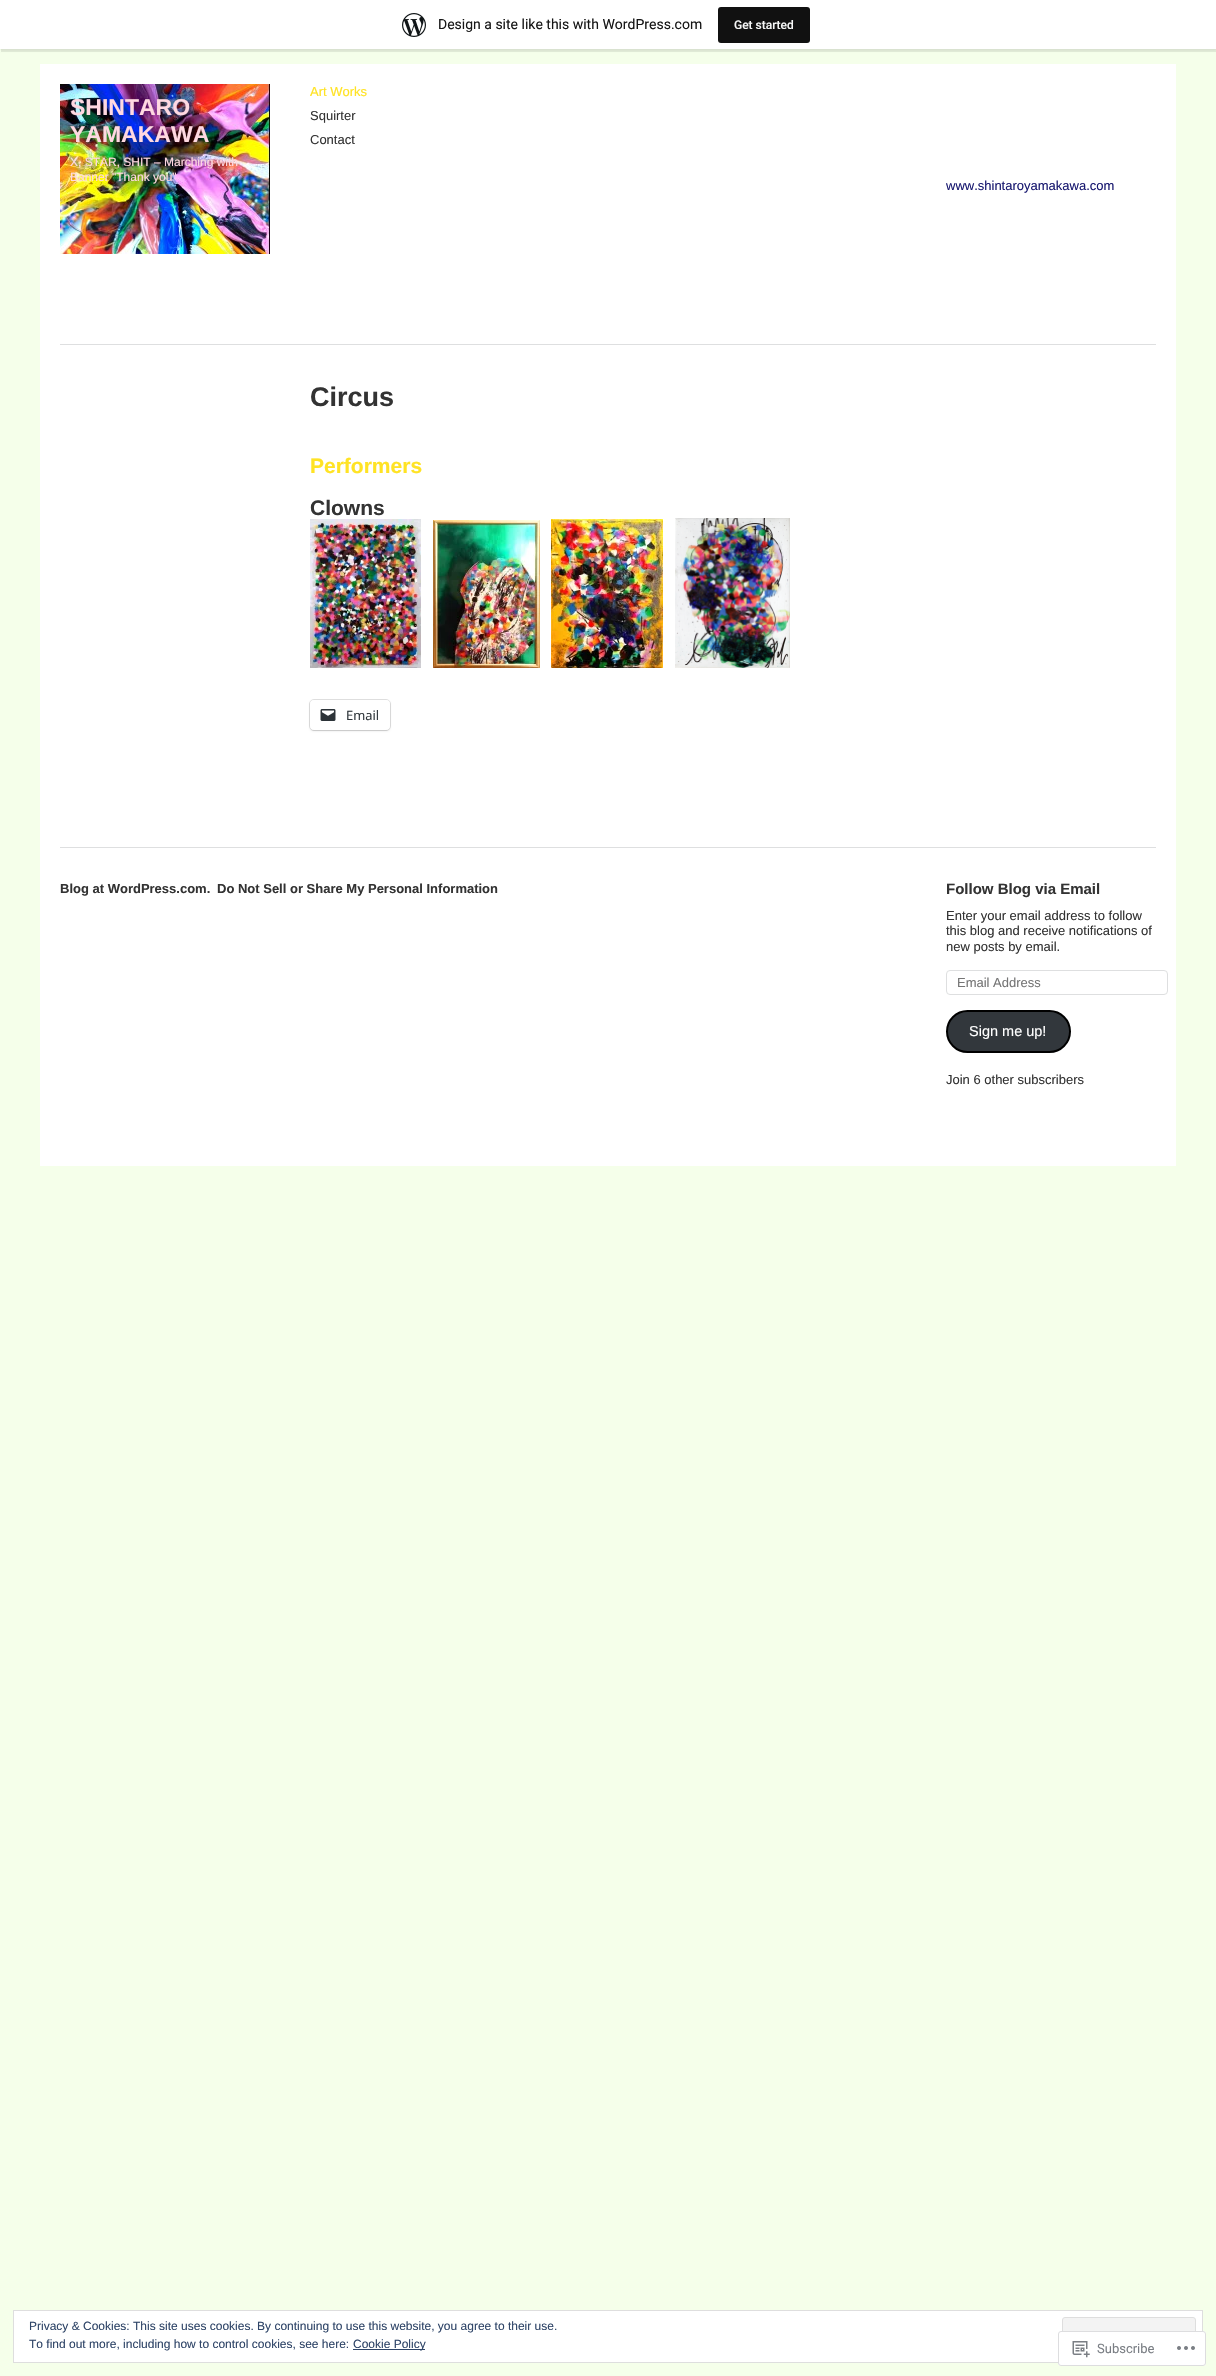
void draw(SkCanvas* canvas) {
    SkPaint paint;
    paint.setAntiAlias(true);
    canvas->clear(0xFFF5FFEA);
    paint.setColor(0x0D000000);
    paint.setMaskFilter(SkMaskFilter::MakeBlur(kNormal_SkBlurStyle, 1));
    canvas->drawRect(SkRect::MakeXYWH(0, 1, 1216, 49), paint);
    paint.setMaskFilter(nullptr);
    paint.setColor(0x14000000);
    canvas->drawPath(SkPathBuilder().moveTo(1, 49).lineTo(1, 52).lineTo(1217, 52).lineTo(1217, 3).lineTo(1216, 3).lineTo(1216, 49).close().detach(), paint);
    paint.setColor(0xFFFFFFFF);
    canvas->drawRect(SkRect::MakeXYWH(0, 0, 1216, 49), paint);
    canvas->drawImageRect(SkImages::DeferredFromEncodedData(SkData::MakeFromFileName("img1.png")), SkRect::MakeXYWH(402, 13, 24, 24), SkSamplingOptions());
    SkFont font1(fontMgr->matchFamilyStyle("Roboto", SkFontStyle::Normal()), 14);
    font1.setSubpixel(true);
    paint.setColor(0xFF171717);
    canvas->drawString("Design a site like this with WordPress.com", 438, 29, font1, paint);
    paint.setColor(0xFF111111);
    canvas->drawRoundRect(SkRect::MakeXYWH(718, 7, 92, 36), 3, 3, paint);
    SkFont font2(fontMgr->matchFamilyStyle("Roboto", SkFontStyle(500, SkFontStyle::kNormal_Width, SkFontStyle::kUpright_Slant)), 12);
    font2.setSubpixel(true);
    paint.setColor(0xFFF6F7F7);
    canvas->drawString("Get started", 734, 29, font2, paint);
    paint.setColor(0xFFFFFFFF);
    canvas->drawRect(SkRect::MakeXYWH(40, 64, 1136, 1102), paint);
    paint.setColor(0xFFDEDFE0);
    canvas->drawRect(SkRect::MakeXYWH(60, 344, 1096, 1), paint);
    canvas->drawImageRect(SkImages::DeferredFromEncodedData(SkData::MakeFromFileName("img2.png")), SkRect::MakeXYWH(60, 84, 210, 170), SkSamplingOptions());
    SkFont font3(fontMgr->matchFamilyStyle("Liberation Sans", SkFontStyle::Bold()), 23);
    font3.setSubpixel(true);
    paint.setColor(0xFFFFD8E1);
    canvas->drawString("SHINTARO", 70, 115, font3, paint);
    canvas->drawString("YAMAKAWA", 70, 142, font3, paint);
    SkFont font4(fontMgr->matchFamilyStyle("Liberation Sans", SkFontStyle::Normal()), 12);
    font4.setSubpixel(true);
    canvas->drawString("X, STAR, SHIT – Marching with", 70, 166, font4, paint);
    canvas->drawString("Banner \"Thank you\"", 70, 181, font4, paint);
    SkFont font5(fontMgr->matchFamilyStyle("Liberation Sans", SkFontStyle::Normal()), 13);
    font5.setSubpixel(true);
    paint.setColor(0xFFFFE324);
    canvas->drawString("Art Works", 310, 96, font5, paint);
    paint.setColor(0xFF333333);
    canvas->drawString("Squirter", 310, 120, font5, paint);
    canvas->drawString("Contact", 310, 144, font5, paint);
    paint.setColor(0xFF191970);
    canvas->drawString("www.shintaroyamakawa.com", 946, 190, font5, paint);
    SkFont font6(fontMgr->matchFamilyStyle("Liberation Sans", SkFontStyle::Bold()), 27);
    font6.setSubpixel(true);
    paint.setColor(0xFF333333);
    canvas->drawString("Circus", 310, 406, font6, paint);
    SkFont font7(fontMgr->matchFamilyStyle("Liberation Sans", SkFontStyle::Bold()), 21);
    font7.setSubpixel(true);
    paint.setColor(0xFFFFE324);
    canvas->drawString("Performers", 310, 473, font7, paint);
    paint.setColor(0xFF333333);
    canvas->drawString("Clowns", 310, 515, font7, paint);
    canvas->drawImageRect(SkImages::DeferredFromEncodedData(SkData::MakeFromFileName("img3.png")), SkRect::MakeXYWH(310, 519, 111, 149), SkSamplingOptions());
    canvas->drawImageRect(SkImages::DeferredFromEncodedData(SkData::MakeFromFileName("img4.png")), SkRect::MakeXYWH(433, 520, 107, 148), SkSamplingOptions());
    canvas->drawImageRect(SkImages::DeferredFromEncodedData(SkData::MakeFromFileName("img5.png")), SkRect::MakeXYWH(551, 519, 112, 149), SkSamplingOptions());
    canvas->drawImageRect(SkImages::DeferredFromEncodedData(SkData::MakeFromFileName("img6.png")), SkRect::MakeXYWH(675, 518, 115, 150), SkSamplingOptions());
    paint.setStyle(SkPaint::kStroke_Style);
    paint.setStrokeWidth(1);
    paint.setColor(0xFFE0E0E0);
    canvas->drawRoundRect(SkRect::MakeXYWH(309.5f, 699.5f, 81, 31), 4.5f, 4.5f, paint);
    paint.setStyle(SkPaint::kFill_Style);
    paint.setColor(0x1F000000);
    paint.setMaskFilter(SkMaskFilter::MakeBlur(kNormal_SkBlurStyle, 1));
    canvas->drawRoundRect(SkRect::MakeXYWH(310, 701, 80, 30), 4, 4, paint);
    paint.setMaskFilter(nullptr);
    paint.setColor(0xFFFFFFFF);
    canvas->drawRoundRect(SkRect::MakeXYWH(310, 700, 80, 30), 4, 4, paint);
    canvas->drawImageRect(SkImages::DeferredFromEncodedData(SkData::MakeFromFileName("img7.png")), SkRect::MakeXYWH(320, 709, 16, 12), SkSamplingOptions());
    SkFont font8(fontMgr->matchFamilyStyle("Open Sans", SkFontStyle::Normal()), 13);
    font8.setSubpixel(true);
    paint.setColor(0xFF2C3338);
    canvas->drawString("Email", 346, 720, font8, paint);
    paint.setColor(0xFFDEDFE0);
    canvas->drawRect(SkRect::MakeXYWH(60, 847, 1096, 1), paint);
    SkFont font9(fontMgr->matchFamilyStyle("Liberation Sans", SkFontStyle::Bold()), 13);
    font9.setSubpixel(true);
    paint.setColor(0xFF333333);
    canvas->drawString("Blog at WordPress.com.", 60, 893, font9, paint);
    canvas->drawString("Do Not Sell or Share My Personal Information", 217, 893, font9, paint);
    SkFont font10(fontMgr->matchFamilyStyle("Liberation Sans", SkFontStyle::Bold()), 15);
    font10.setSubpixel(true);
    canvas->drawString("Follow Blog via Email", 946, 894, font10, paint);
    canvas->drawString("Enter your email address to follow", 946, 920, font5, paint);
    canvas->drawString("this blog and receive notifications of", 946, 935, font5, paint);
    canvas->drawString("new posts by email.", 946, 951, font5, paint);
    paint.setStyle(SkPaint::kStroke_Style);
    paint.setColor(0xFFDEDFE0);
    canvas->drawRoundRect(SkRect::MakeXYWH(946.5f, 970.5f, 221, 24), 3.5f, 3.5f, paint);
    paint.setStyle(SkPaint::kFill_Style);
    paint.setColor(0xFF757575);
    canvas->drawString("Email Address", 957, 987, font5, paint);
    paint.setColor(0xFF32373C);
    canvas->drawRoundRect(SkRect::MakeXYWH(947, 1011, 123, 41), 20.5f, 20.5f, paint);
    paint.setStyle(SkPaint::kStroke_Style);
    paint.setStrokeWidth(2);
    paint.setColor(0xFF000000);
    canvas->drawRoundRect(SkRect::MakeXYWH(947, 1011, 123, 41), 20.5f, 20.5f, paint);
    SkFont font11(fontMgr->matchFamilyStyle("Liberation Sans", SkFontStyle::Normal()), 14.5f);
    font11.setSubpixel(true);
    paint.setStyle(SkPaint::kFill_Style);
    paint.setColor(0xFFFFFFFF);
    canvas->drawString("Sign me up!", 969, 1036, font11, paint);
    paint.setColor(0xFF333333);
    canvas->drawString("Join 6 other subscribers", 946, 1084, font5, paint);
    paint.setColor(0xFFFFFFFF);
    canvas->drawRect(SkRect::MakeXYWH(13.5f, 2310.5f, 1189, 52), paint);
    paint.setStyle(SkPaint::kStroke_Style);
    paint.setStrokeWidth(1);
    paint.setColor(0xFFDEDEDE);
    canvas->drawRect(SkRect::MakeXYWH(13.5f, 2310.5f, 1189, 52), paint);
    paint.setStyle(SkPaint::kFill_Style);
    paint.setColor(0xFF2E4467);
    canvas->drawString("Privacy & Cookies: This site uses cookies. By continuing to use this website, you agree to their use.", 29, 2330, font4, paint);
    paint.setColor(0xFFF3F3F3);
    canvas->drawRoundRect(SkRect::MakeXYWH(1062.5f, 2317.5f, 133, 38), 2.5f, 2.5f, paint);
    paint.setStyle(SkPaint::kStroke_Style);
    paint.setColor(0xFFDEDEDE);
    canvas->drawRoundRect(SkRect::MakeXYWH(1062.5f, 2317.5f, 133, 38), 2.5f, 2.5f, paint);
    paint.setStyle(SkPaint::kFill_Style);
    paint.setColor(0xFF2E4467);
    canvas->drawString("To find out more, including how to control cookies, see here:", 29, 2348, font4, paint);
    canvas->drawRect(SkRect::MakeXYWH(353, 2349, 72, 1), paint);
    canvas->drawString("Cookie Policy", 353, 2348, font4, paint);
    paint.setColor(0xFAFFFFFF);
    canvas->drawRoundRect(SkRect::MakeXYWH(1058, 2331, 148, 35), 3, 3, paint);
    paint.setStyle(SkPaint::kStroke_Style);
    paint.setColor(0xFADCDCDE);
    canvas->drawRoundRect(SkRect::MakeXYWH(1058.5f, 2331.5f, 147, 34), 2.5f, 2.5f, paint);
    canvas->drawImageRect(SkImages::DeferredFromEncodedData(SkData::MakeFromFileName("img8.png")), SkRect::MakeXYWH(1072, 2341, 18, 17), SkSamplingOptions());
    SkFont font12(fontMgr->matchFamilyStyle("Roboto", SkFontStyle::Normal()), 13);
    font12.setSubpixel(true);
    paint.setStyle(SkPaint::kFill_Style);
    paint.setColor(0xFF7A7E84);
    canvas->drawString("Subscribe", 1097, 2353, font12, paint);
    canvas->drawImageRect(SkImages::DeferredFromEncodedData(SkData::MakeFromFileName("img9.png")), SkRect::MakeXYWH(1177, 2346, 18, 4), SkSamplingOptions());
}
